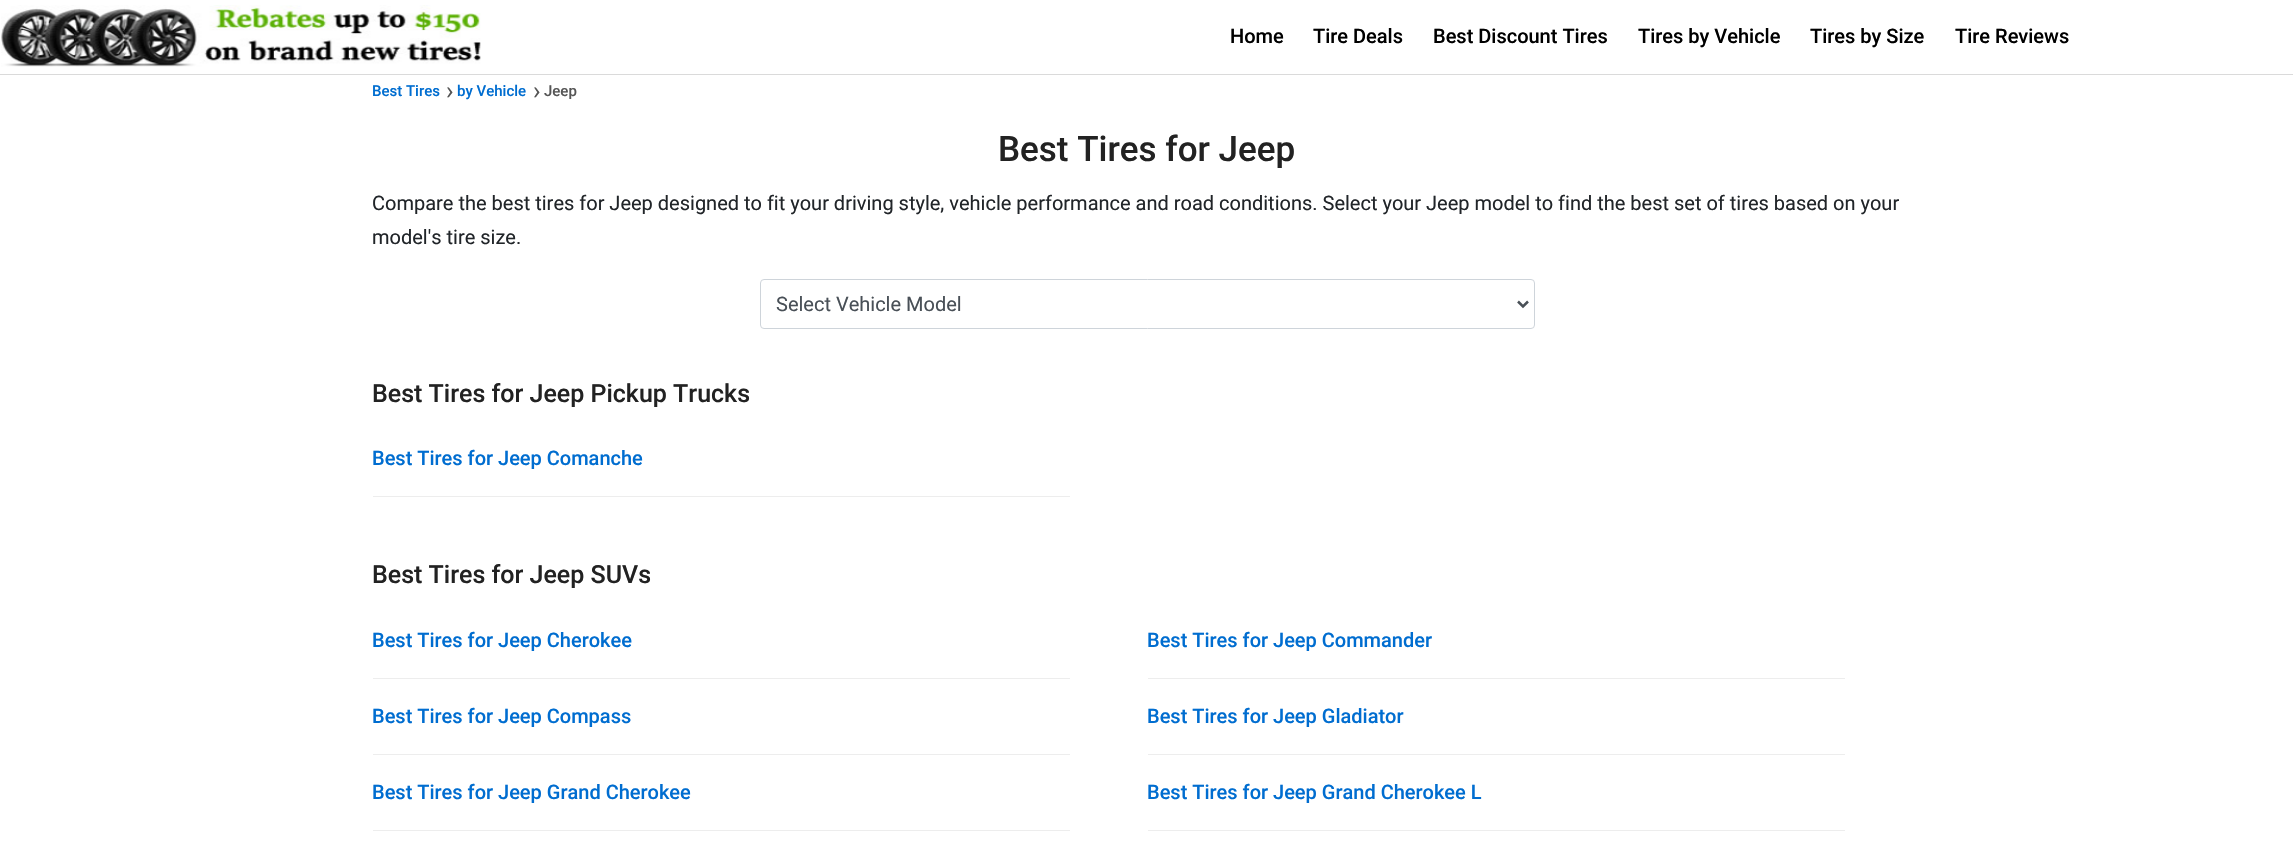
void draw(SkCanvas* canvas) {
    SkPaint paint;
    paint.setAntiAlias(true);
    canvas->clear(0xFFFFFFFF);
    paint.setColor(0xFFDADADA);
    canvas->drawRect(SkRect::MakeXYWH(0, 74, 2293, 1), paint);
    canvas->drawImageRect(SkImages::DeferredFromEncodedData(SkData::MakeFromFileName("img1.png")), SkRect::MakeXYWH(1, 5, 480, 62), SkSamplingOptions());
    SkFont font1(fontMgr->matchFamilyStyle("Roboto", SkFontStyle(500, SkFontStyle::kNormal_Width, SkFontStyle::kUpright_Slant)), 20);
    font1.setSubpixel(true);
    paint.setColor(0xFF000000);
    canvas->drawString("Home", 1230, 43, font1, paint);
    canvas->drawString("Tire Deals", 1313, 43, font1, paint);
    canvas->drawString("Best Discount Tires", 1433, 43, font1, paint);
    canvas->drawString("Tires by Vehicle", 1638, 43, font1, paint);
    canvas->drawString("Tires by Size", 1810, 43, font1, paint);
    canvas->drawString("Tire Reviews", 1955, 43, font1, paint);
    SkFont font2(fontMgr->matchFamilyStyle("Roboto", SkFontStyle(500, SkFontStyle::kNormal_Width, SkFontStyle::kUpright_Slant)), 15);
    font2.setSubpixel(true);
    paint.setColor(0xFF006DD0);
    canvas->drawString("Best Tires", 372, 96, font2, paint);
    SkFont font3(fontMgr->matchFamilyStyle("Roboto", SkFontStyle::Normal()), 25);
    font3.setSubpixel(true);
    paint.setColor(0xFF555555);
    canvas->drawString("›", 446, 99, font3, paint);
    paint.setColor(0xFF006DD0);
    canvas->drawString("by Vehicle", 457, 96, font2, paint);
    paint.setColor(0xFF555555);
    canvas->drawString("›", 533, 99, font3, paint);
    canvas->drawString("Jeep", 544, 96, font2, paint);
    SkFont font4(fontMgr->matchFamilyStyle("Roboto", SkFontStyle(500, SkFontStyle::kNormal_Width, SkFontStyle::kUpright_Slant)), 35);
    font4.setSubpixel(true);
    paint.setColor(0xFF222222);
    canvas->drawString("Best Tires for Jeep", 998, 161, font4, paint);
    SkFont font5(fontMgr->matchFamilyStyle("Roboto", SkFontStyle::Normal()), 20);
    font5.setSubpixel(true);
    paint.setColor(0xFF212529);
    canvas->drawString("Compare the best tires for Jeep designed to fit your driving style, vehicle performance and road conditions. Select your Jeep model to find the best set of tires based on your", 372, 210, font5, paint);
    canvas->drawString("model's tire size.", 372, 244, font5, paint);
    paint.setStyle(SkPaint::kStroke_Style);
    paint.setStrokeWidth(1);
    paint.setColor(0xFFCED4DA);
    canvas->drawRoundRect(SkRect::MakeXYWH(760.5f, 279.5f, 774, 49), 3.5f, 3.5f, paint);
    paint.setStrokeWidth(2.5f);
    paint.setColor(0xFF495057);
    canvas->drawPath(SkPathBuilder().moveTo(1518, 301.5f).lineTo(1523, 306.5f).lineTo(1528, 301.5f).detach(), paint);
    paint.setStyle(SkPaint::kFill_Style);
    canvas->drawString("Select Vehicle Model", 776, 311, font5, paint);
    SkFont font6(fontMgr->matchFamilyStyle("Roboto", SkFontStyle(500, SkFontStyle::kNormal_Width, SkFontStyle::kUpright_Slant)), 25);
    font6.setSubpixel(true);
    paint.setColor(0xFF222222);
    canvas->drawString("Best Tires for Jeep Pickup Trucks", 372, 402, font6, paint);
    paint.setColor(0xFFEDEDED);
    canvas->drawRect(SkRect::MakeXYWH(373, 496, 697, 1), paint);
    paint.setColor(0xFF006DD0);
    canvas->drawString("Best Tires for Jeep Comanche", 372, 465, font1, paint);
    paint.setColor(0xFF222222);
    canvas->drawString("Best Tires for Jeep SUVs", 372, 583, font6, paint);
    paint.setColor(0xFFEDEDED);
    canvas->drawRect(SkRect::MakeXYWH(373, 678, 697, 1), paint);
    paint.setColor(0xFF006DD0);
    canvas->drawString("Best Tires for Jeep Cherokee", 372, 647, font1, paint);
    paint.setColor(0xFFEDEDED);
    canvas->drawRect(SkRect::MakeXYWH(1148, 678, 697, 1), paint);
    paint.setColor(0xFF006DD0);
    canvas->drawString("Best Tires for Jeep Commander", 1147, 647, font1, paint);
    paint.setColor(0xFFEDEDED);
    canvas->drawRect(SkRect::MakeXYWH(373, 754, 697, 1), paint);
    paint.setColor(0xFF006DD0);
    canvas->drawString("Best Tires for Jeep Compass", 372, 723, font1, paint);
    paint.setColor(0xFFEDEDED);
    canvas->drawRect(SkRect::MakeXYWH(1148, 754, 697, 1), paint);
    paint.setColor(0xFF006DD0);
    canvas->drawString("Best Tires for Jeep Gladiator", 1147, 723, font1, paint);
    paint.setColor(0xFFEDEDED);
    canvas->drawRect(SkRect::MakeXYWH(373, 830, 697, 1), paint);
    paint.setColor(0xFF006DD0);
    canvas->drawString("Best Tires for Jeep Grand Cherokee", 372, 799, font1, paint);
    paint.setColor(0xFFEDEDED);
    canvas->drawRect(SkRect::MakeXYWH(1148, 830, 697, 1), paint);
    paint.setColor(0xFF006DD0);
    canvas->drawString("Best Tires for Jeep Grand Cherokee L", 1147, 799, font1, paint);
}
